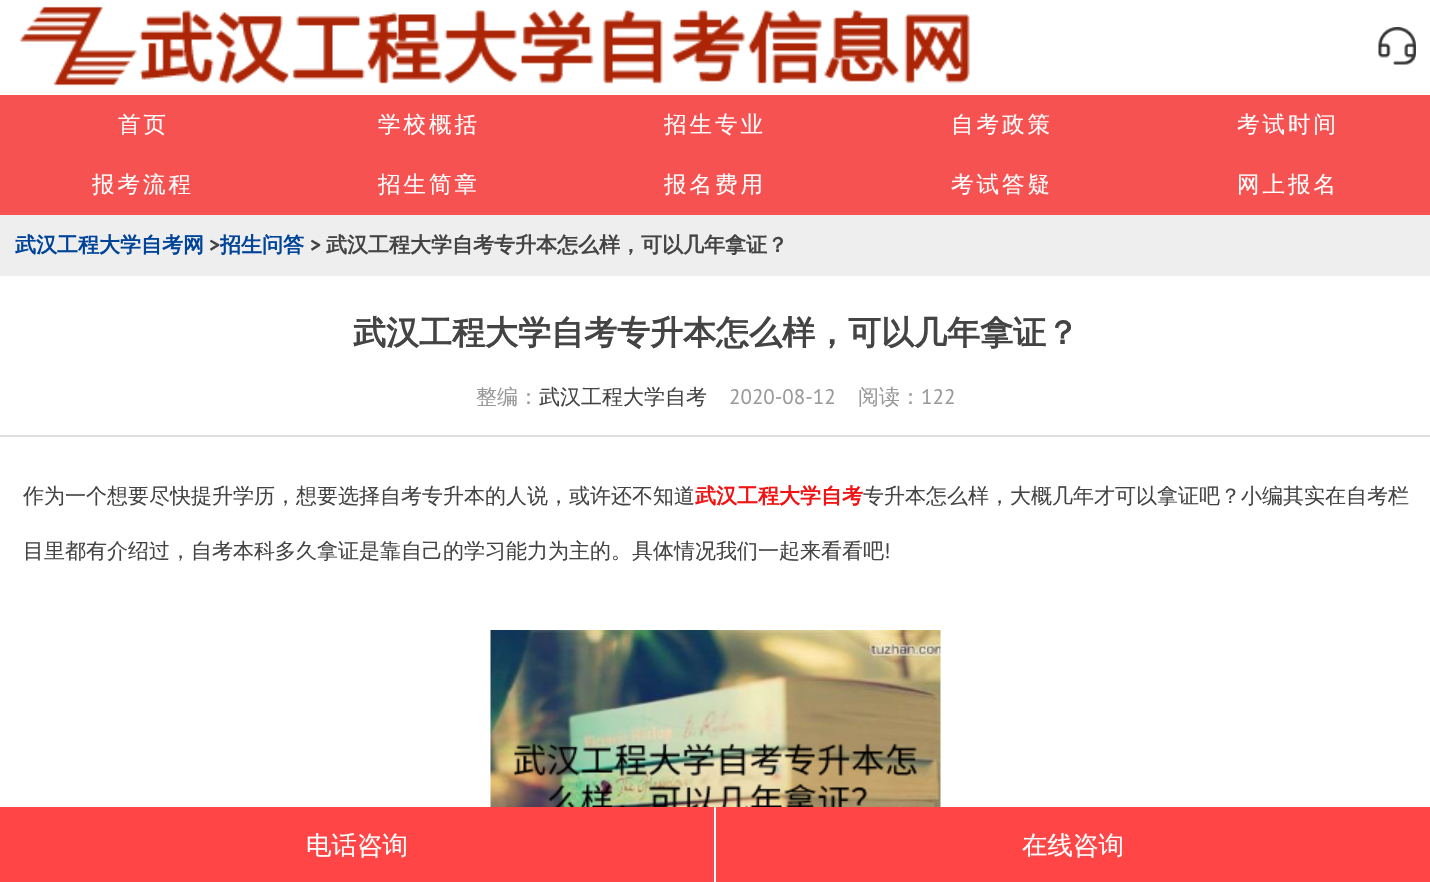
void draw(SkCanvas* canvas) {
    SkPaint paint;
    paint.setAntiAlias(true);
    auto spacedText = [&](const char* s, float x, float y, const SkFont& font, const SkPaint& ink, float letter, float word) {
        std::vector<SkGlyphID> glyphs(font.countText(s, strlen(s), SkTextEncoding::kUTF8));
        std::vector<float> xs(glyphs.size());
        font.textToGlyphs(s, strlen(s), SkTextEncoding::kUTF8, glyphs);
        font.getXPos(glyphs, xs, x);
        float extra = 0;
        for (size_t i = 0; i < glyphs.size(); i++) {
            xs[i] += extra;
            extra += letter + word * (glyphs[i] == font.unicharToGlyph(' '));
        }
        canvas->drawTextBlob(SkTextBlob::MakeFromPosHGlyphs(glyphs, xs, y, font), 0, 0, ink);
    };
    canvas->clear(0xFFFFFFFF);
    canvas->drawImageRect(SkImages::DeferredFromEncodedData(SkData::MakeFromFileName("img1.png")), SkRect::MakeXYWH(20, 6, 950, 80), SkSamplingOptions());
    canvas->drawImageRect(SkImages::DeferredFromEncodedData(SkData::MakeFromFileName("img2.png")), SkRect::MakeXYWH(1378, 27, 38, 38), SkSamplingOptions());
    paint.setColor(0xFFF75252);
    canvas->drawRect(SkRect::MakeXYWH(0, 95, 1430, 120), paint);
    SkFont font1(fontMgr->matchFamilyStyle("WenQuanYi Zen Hei", SkFontStyle(500, SkFontStyle::kNormal_Width, SkFontStyle::kUpright_Slant)), 22.5f);
    font1.setSubpixel(true);
    paint.setColor(0xFFFFFFFF);
    spacedText("首页", 118, 132, font1, paint, 3, 0);
    spacedText("学校概括", 378, 132, font1, paint, 3, 0);
    spacedText("招生专业", 664, 132, font1, paint, 3, 0);
    spacedText("自考政策", 951, 132, font1, paint, 3, 0);
    spacedText("考试时间", 1237, 132, font1, paint, 3, 0);
    spacedText("报考流程", 92, 192, font1, paint, 3, 0);
    spacedText("招生简章", 378, 192, font1, paint, 3, 0);
    spacedText("报名费用", 664, 192, font1, paint, 3, 0);
    spacedText("考试答疑", 951, 192, font1, paint, 3, 0);
    spacedText("网上报名", 1237, 192, font1, paint, 3, 0);
    paint.setColor(0xFFEEEEEE);
    canvas->drawRect(SkRect::MakeXYWH(0, 215, 1430, 61), paint);
    SkFont font2(fontMgr->matchFamilyStyle("WenQuanYi Zen Hei", SkFontStyle::Bold()), 21);
    font2.setSubpixel(true);
    paint.setColor(0xFF004499);
    canvas->drawString("武汉工程大学自考网", 15, 252, font2, paint);
    SkFont font3(fontMgr->matchFamilyStyle("PT Sans", SkFontStyle::Bold()), 21);
    font3.setSubpixel(true);
    paint.setColor(0xFF444444);
    canvas->drawString(">", 209, 252, font3, paint);
    paint.setColor(0xFF004499);
    canvas->drawString("招生问答", 220, 252, font2, paint);
    paint.setColor(0xFF444444);
    canvas->drawString(">", 310, 252, font3, paint);
    canvas->drawString("武汉工程大学自考专升本怎么样，可以几年拿证？", 326, 252, font2, paint);
    SkFont font4(fontMgr->matchFamilyStyle("WenQuanYi Zen Hei", SkFontStyle::Bold()), 33);
    font4.setSubpixel(true);
    canvas->drawString("武汉工程大学自考专升本怎么样，可以几年拿证？", 353, 344, font4, paint);
    paint.setColor(0xFFDEDEDE);
    canvas->drawRect(SkRect::MakeXYWH(0, 435, 1430, 2), paint);
    SkFont font5(fontMgr->matchFamilyStyle("WenQuanYi Zen Hei", SkFontStyle(500, SkFontStyle::kNormal_Width, SkFontStyle::kUpright_Slant)), 21);
    font5.setSubpixel(true);
    paint.setColor(0xFF999999);
    canvas->drawString("整编：", 476, 404, font5, paint);
    paint.setColor(0xFF444444);
    canvas->drawString("武汉工程大学自考", 539, 404, font5, paint);
    SkFont font6(fontMgr->matchFamilyStyle("PT Sans", SkFontStyle::Normal()), 21);
    font6.setSubpixel(true);
    paint.setColor(0xFF999999);
    canvas->drawString("2020-08-12", 729, 404, font6, paint);
    canvas->drawString("阅读：", 858, 404, font5, paint);
    canvas->drawString("122", 921, 404, font6, paint);
    paint.setColor(0xFF444444);
    canvas->drawString("作为一个想要尽快提升学历，想要选择自考专升本的人说，或许还不知道", 23, 503, font5, paint);
    paint.setColor(0xFFF21313);
    canvas->drawString("武汉工程大学自考", 695, 503, font2, paint);
    paint.setColor(0xFF444444);
    canvas->drawString("专升本怎么样，大概几年才可以拿证吧？小编其实在自考栏", 863, 503, font5, paint);
    canvas->drawString("目里都有介绍过，自考本科多久拿证是靠自己的学习能力为主的。具体情况我们一起来看看吧", 23, 558, font5, paint);
    canvas->drawString("!", 884, 558, font6, paint);
    canvas->drawImageRect(SkImages::DeferredFromEncodedData(SkData::MakeFromFileName("img3.png")), SkRect::MakeXYWH(490, 630, 451, 177), SkSamplingOptions());
    paint.setColor(0xFFFF4546);
    canvas->drawRect(SkRect::MakeXYWH(0, 807, 1430, 75), paint);
    paint.setColor(0xFFFFFFFF);
    canvas->drawRect(SkRect::MakeXYWH(714, 807, 2, 75), paint);
    SkFont font7(fontMgr->matchFamilyStyle("WenQuanYi Zen Hei", SkFontStyle(500, SkFontStyle::kNormal_Width, SkFontStyle::kUpright_Slant)), 25.5f);
    font7.setSubpixel(true);
    canvas->drawString("电话咨询", 306, 854, font7, paint);
    canvas->drawString("在线咨询", 1022, 854, font7, paint);
}
